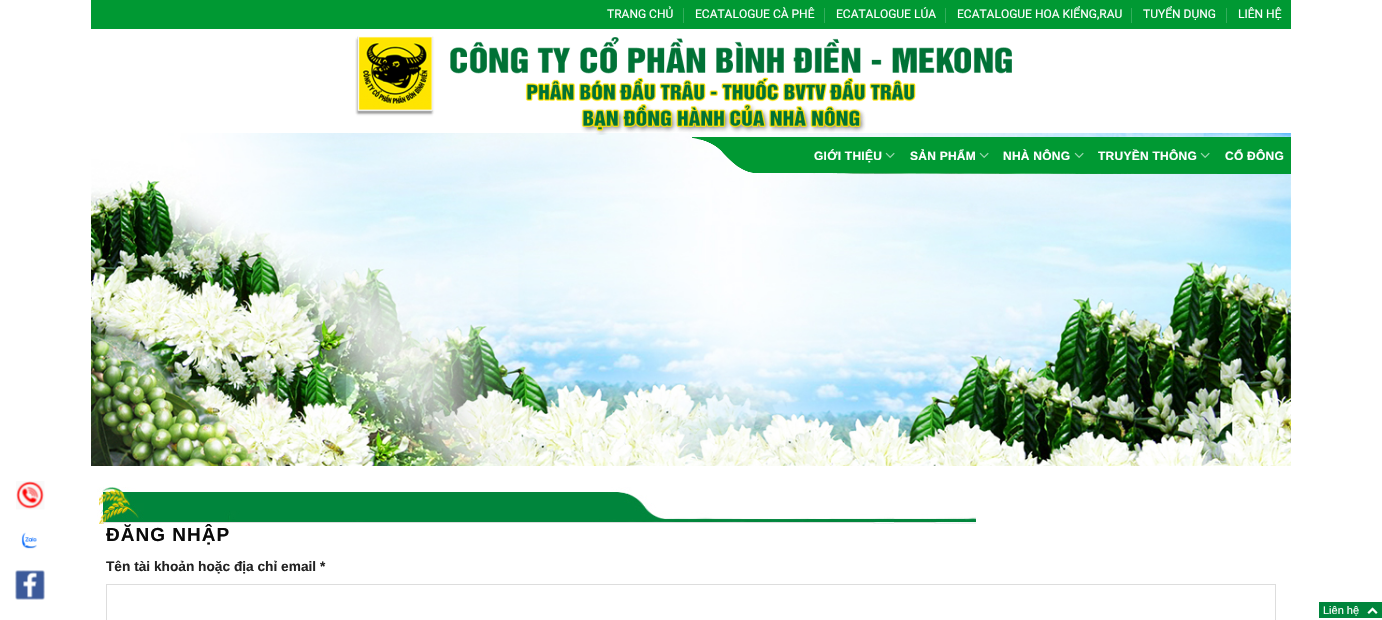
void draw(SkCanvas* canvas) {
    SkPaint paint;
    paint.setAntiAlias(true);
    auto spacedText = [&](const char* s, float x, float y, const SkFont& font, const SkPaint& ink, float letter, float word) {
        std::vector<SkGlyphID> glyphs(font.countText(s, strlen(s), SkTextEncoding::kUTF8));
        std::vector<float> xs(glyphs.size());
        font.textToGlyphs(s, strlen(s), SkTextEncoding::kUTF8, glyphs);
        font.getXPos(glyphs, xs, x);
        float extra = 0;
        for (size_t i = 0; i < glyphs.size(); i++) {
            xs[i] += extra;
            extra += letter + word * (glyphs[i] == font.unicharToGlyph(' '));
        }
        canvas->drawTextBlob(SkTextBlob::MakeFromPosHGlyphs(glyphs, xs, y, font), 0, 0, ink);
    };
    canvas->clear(0xFFFFFFFF);
    canvas->drawImageRect(SkImages::DeferredFromEncodedData(SkData::MakeFromFileName("img1.png")), SkRect::MakeXYWH(16, 481, 29, 29), SkSamplingOptions());
    canvas->drawImageRect(SkImages::DeferredFromEncodedData(SkData::MakeFromFileName("img2.png")), SkRect::MakeXYWH(21, 532, 16, 17), SkSamplingOptions());
    canvas->drawImageRect(SkImages::DeferredFromEncodedData(SkData::MakeFromFileName("img3.png")), SkRect::MakeXYWH(15, 570, 30, 30), SkSamplingOptions());
    paint.setColor(0xFF009933);
    canvas->drawRect(SkRect::MakeXYWH(91, 0, 1200, 29), paint);
    SkFont font1(fontMgr->matchFamilyStyle("Roboto", SkFontStyle::Normal()), 12);
    font1.setSubpixel(true);
    paint.setColor(0xFFFFFFFF);
    canvas->drawString("TRANG CHỦ", 607, 18, font1, paint);
    paint.setColor(0xFF33AD5C);
    canvas->drawRect(SkRect::MakeXYWH(683, 8, 1, 15), paint);
    paint.setColor(0xFFFFFFFF);
    canvas->drawString("ECATALOGUE CÀ PHÊ", 695, 18, font1, paint);
    paint.setColor(0xFF33AD5C);
    canvas->drawRect(SkRect::MakeXYWH(824, 8, 1, 15), paint);
    paint.setColor(0xFFFFFFFF);
    canvas->drawString("ECATALOGUE LÚA", 836, 18, font1, paint);
    paint.setColor(0xFF33AD5C);
    canvas->drawRect(SkRect::MakeXYWH(945, 8, 1, 15), paint);
    paint.setColor(0xFFFFFFFF);
    canvas->drawString("ECATALOGUE HOA KIỂNG,RAU", 957, 18, font1, paint);
    paint.setColor(0xFF33AD5C);
    canvas->drawRect(SkRect::MakeXYWH(1131, 8, 1, 15), paint);
    paint.setColor(0xFFFFFFFF);
    canvas->drawString("TUYỂN DỤNG", 1143, 18, font1, paint);
    paint.setColor(0xFF33AD5C);
    canvas->drawRect(SkRect::MakeXYWH(1226, 8, 1, 15), paint);
    paint.setColor(0xFFFFFFFF);
    canvas->drawString("LIÊN HỆ", 1238, 18, font1, paint);
    canvas->drawImageRect(SkImages::DeferredFromEncodedData(SkData::MakeFromFileName("img7.png")), SkRect::MakeXYWH(91, 133, 1200, 333), SkSamplingOptions());
    canvas->drawImageRect(SkImages::DeferredFromEncodedData(SkData::MakeFromFileName("img4.png")), SkRect::MakeXYWH(355, 36, 657, 99), SkSamplingOptions());
    canvas->drawImageRect(SkImages::DeferredFromEncodedData(SkData::MakeFromFileName("img5.png")), SkRect::MakeXYWH(692, 137, 599, 37), SkSamplingOptions());
    SkFont font2(fontMgr->matchFamilyStyle("Liberation Sans", SkFontStyle::Bold()), 12);
    font2.setSubpixel(true);
    spacedText("GIỚI THIỆU", 814, 160, font2, paint, 0.25f, 0);
    canvas->drawImageRect(SkImages::DeferredFromEncodedData(SkData::MakeFromFileName("img6.png")), SkRect::MakeXYWH(885, 152, 10, 6), SkSamplingOptions());
    spacedText("SẢN PHẨM", 910, 160, font2, paint, 0.25f, 0);
    canvas->drawImageRect(SkImages::DeferredFromEncodedData(SkData::MakeFromFileName("img6.png")), SkRect::MakeXYWH(979, 152, 10, 6), SkSamplingOptions());
    spacedText("NHÀ NÔNG", 1003, 160, font2, paint, 0.25f, 0);
    canvas->drawImageRect(SkImages::DeferredFromEncodedData(SkData::MakeFromFileName("img6.png")), SkRect::MakeXYWH(1074, 152, 10, 6), SkSamplingOptions());
    spacedText("TRUYỀN THÔNG", 1098, 160, font2, paint, 0.25f, 0);
    canvas->drawImageRect(SkImages::DeferredFromEncodedData(SkData::MakeFromFileName("img6.png")), SkRect::MakeXYWH(1200, 152, 10, 6), SkSamplingOptions());
    spacedText("CỔ ĐÔNG", 1225, 160, font2, paint, 0.25f, 0);
    canvas->drawImageRect(SkImages::DeferredFromEncodedData(SkData::MakeFromFileName("img8.png")), SkRect::MakeXYWH(97, 487, 879, 37), SkSamplingOptions());
    SkFont font3(fontMgr->matchFamilyStyle("Liberation Sans", SkFontStyle::Bold()), 19);
    font3.setSubpixel(true);
    paint.setColor(0xFF0A0A0A);
    spacedText("ĐĂNG NHẬP", 106, 541, font3, paint, 1, 0);
    SkFont font4(fontMgr->matchFamilyStyle("Liberation Sans", SkFontStyle::Bold()), 13.7f);
    font4.setSubpixel(true);
    paint.setColor(0xFF222222);
    canvas->drawString("Tên tài khoản hoặc địa chỉ email *", 106, 571, font4, paint);
    paint.setStyle(SkPaint::kStroke_Style);
    paint.setStrokeWidth(1);
    paint.setColor(0xFFDDDDDD);
    canvas->drawRect(SkRect::MakeXYWH(106.5f, 584.5f, 1169, 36), paint);
    paint.setStyle(SkPaint::kFill_Style);
    paint.setColor(0xFF00853C);
    canvas->drawRect(SkRect::MakeXYWH(1319, 602, 63, 16), paint);
    SkFont font5(fontMgr->matchFamilyStyle("Liberation Sans", SkFontStyle::Normal()), 11);
    font5.setSubpixel(true);
    paint.setColor(0xFFFFFFFF);
    canvas->drawString("Liên hệ", 1323, 614, font5, paint);
    canvas->drawImageRect(SkImages::DeferredFromEncodedData(SkData::MakeFromFileName("img9.png")), SkRect::MakeXYWH(1367, 607, 11, 7), SkSamplingOptions());
}
